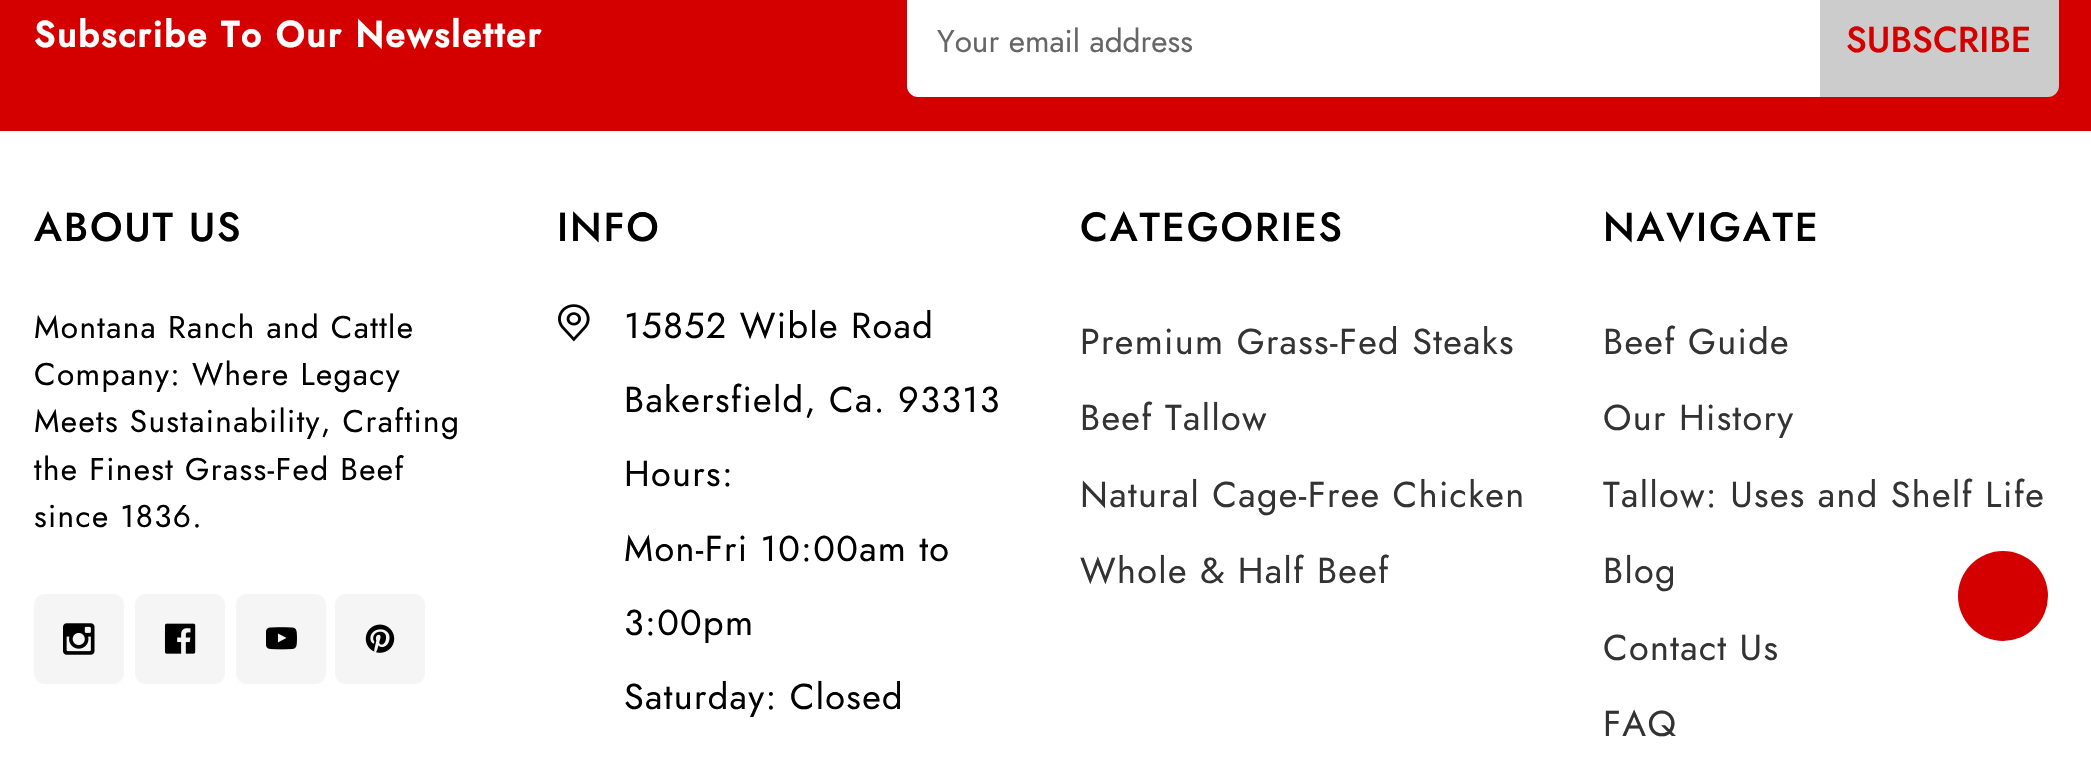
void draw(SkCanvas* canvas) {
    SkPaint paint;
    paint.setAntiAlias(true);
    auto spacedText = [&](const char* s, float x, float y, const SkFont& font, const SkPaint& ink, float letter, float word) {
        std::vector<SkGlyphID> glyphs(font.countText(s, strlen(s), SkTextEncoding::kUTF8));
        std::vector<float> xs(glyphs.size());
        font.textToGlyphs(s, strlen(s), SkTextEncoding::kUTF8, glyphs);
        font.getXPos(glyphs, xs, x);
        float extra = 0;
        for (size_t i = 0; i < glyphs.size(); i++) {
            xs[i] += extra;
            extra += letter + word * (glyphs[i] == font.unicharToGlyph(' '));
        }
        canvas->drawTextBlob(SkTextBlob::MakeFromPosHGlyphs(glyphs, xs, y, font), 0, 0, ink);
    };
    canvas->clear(0xFFFFFFFF);
    paint.setColor(0xFFD40000);
    canvas->drawRect(SkRect::MakeXYWH(0, 0, 2091, 131), paint);
    SkFont font1(fontMgr->matchFamilyStyle("Jost", SkFontStyle::Bold()), 36);
    font1.setSubpixel(true);
    paint.setColor(0xFFFFFFFF);
    spacedText("Subscribe To Our Newsletter", 34, 47, font1, paint, 1.8f, 0);
    canvas->drawPath(SkPathBuilder().moveTo(918, -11).lineTo(1820, -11).lineTo(1820, 97).lineTo(918, 97).cubicTo(912, 97, 907, 92, 907, 86).lineTo(907, 0).cubicTo(907, -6, 912, -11, 918, -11).close().detach(), paint);
    SkFont font2(fontMgr->matchFamilyStyle("Jost", SkFontStyle::Normal()), 31.5f);
    font2.setSubpixel(true);
    paint.setColor(0xFF666666);
    canvas->drawString("Your email address", 937, 52, font2, paint);
    paint.setColor(0xFFCCCCCC);
    canvas->drawPath(SkPathBuilder().moveTo(1820, -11).lineTo(2048, -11).cubicTo(2054, -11, 2059, -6, 2059, 0).lineTo(2059, 86).cubicTo(2059, 92, 2054, 97, 2048, 97).lineTo(1820, 97).close().detach(), paint);
    SkFont font3(fontMgr->matchFamilyStyle("Jost", SkFontStyle(500, SkFontStyle::kNormal_Width, SkFontStyle::kUpright_Slant)), 36);
    font3.setSubpixel(true);
    paint.setColor(0xFFD40000);
    canvas->drawString("SUBSCRIBE", 1846, 52, font3, paint);
    SkFont font4(fontMgr->matchFamilyStyle("Jost", SkFontStyle(500, SkFontStyle::kNormal_Width, SkFontStyle::kUpright_Slant)), 40.5f);
    font4.setSubpixel(true);
    paint.setColor(0xFF000000);
    spacedText("ABOUT US", 34, 241, font4, paint, 1.8f, 0);
    spacedText("Montana Ranch and Cattle", 34, 338, font2, paint, 1.35f, 0);
    spacedText("Company: Where Legacy", 34, 385, font2, paint, 1.35f, 0);
    spacedText("Meets Sustainability, Crafting", 34, 432, font2, paint, 1.35f, 0);
    spacedText("the Finest Grass-Fed Beef", 34, 480, font2, paint, 1.35f, 0);
    spacedText("since 1836.", 34, 527, font2, paint, 1.35f, 0);
    paint.setColor(0xFFF5F5F5);
    canvas->drawRoundRect(SkRect::MakeXYWH(34, 594, 90, 90), 11, 11, paint);
    canvas->drawImageRect(SkImages::DeferredFromEncodedData(SkData::MakeFromFileName("img1.png")), SkRect::MakeXYWH(63, 623, 32, 32), SkSamplingOptions());
    canvas->drawRoundRect(SkRect::MakeXYWH(135, 594, 90, 90), 11, 11, paint);
    canvas->drawImageRect(SkImages::DeferredFromEncodedData(SkData::MakeFromFileName("img2.png")), SkRect::MakeXYWH(164, 623, 32, 31), SkSamplingOptions());
    canvas->drawRoundRect(SkRect::MakeXYWH(236, 594, 90, 90), 11, 11, paint);
    canvas->drawImageRect(SkImages::DeferredFromEncodedData(SkData::MakeFromFileName("img3.png")), SkRect::MakeXYWH(266, 627, 31, 23), SkSamplingOptions());
    canvas->drawRoundRect(SkRect::MakeXYWH(335, 594, 90, 90), 11, 11, paint);
    canvas->drawImageRect(SkImages::DeferredFromEncodedData(SkData::MakeFromFileName("img4.png")), SkRect::MakeXYWH(365, 624, 30, 29), SkSamplingOptions());
    paint.setColor(0xFF000000);
    spacedText("INFO", 557, 241, font4, paint, 1.8f, 0);
    canvas->drawImageRect(SkImages::DeferredFromEncodedData(SkData::MakeFromFileName("img5.png")), SkRect::MakeXYWH(558, 304, 32, 38), SkSamplingOptions());
    SkFont font5(fontMgr->matchFamilyStyle("Jost", SkFontStyle::Normal()), 36);
    font5.setSubpixel(true);
    spacedText("15852 Wible Road", 624, 338, font5, paint, 1.35f, 0);
    spacedText("Bakersfield, Ca. 93313", 624, 412, font5, paint, 1.35f, 0);
    spacedText("Hours:", 624, 486, font5, paint, 1.35f, 0);
    spacedText("Mon-Fri 10:00am to", 624, 561, font5, paint, 1.35f, 0);
    spacedText("3:00pm", 624, 635, font5, paint, 1.35f, 0);
    spacedText("Saturday: Closed", 624, 709, font5, paint, 1.35f, 0);
    spacedText("CATEGORIES", 1080, 241, font4, paint, 1.8f, 0);
    paint.setColor(0xFF333333);
    spacedText("Premium Grass-Fed Steaks", 1080, 354, font5, paint, 1.35f, 0);
    spacedText("Beef Tallow", 1080, 430, font5, paint, 1.35f, 0);
    spacedText("Natural Cage-Free Chicken", 1080, 507, font5, paint, 1.35f, 0);
    spacedText("Whole & Half Beef", 1080, 583, font5, paint, 1.35f, 0);
    paint.setColor(0xFF000000);
    spacedText("NAVIGATE", 1603, 241, font4, paint, 1.8f, 0);
    paint.setColor(0xFF333333);
    spacedText("Beef Guide", 1603, 354, font5, paint, 1.35f, 0);
    spacedText("Our History", 1603, 430, font5, paint, 1.35f, 0);
    spacedText("Tallow: Uses and Shelf Life", 1603, 507, font5, paint, 1.35f, 0);
    spacedText("Blog", 1603, 583, font5, paint, 1.35f, 0);
    spacedText("Contact Us", 1603, 660, font5, paint, 1.35f, 0);
    spacedText("FAQ", 1603, 736, font5, paint, 1.35f, 0);
    paint.setColor(0xFFD40000);
    canvas->drawCircle(2003, 596, 45, paint);
}
